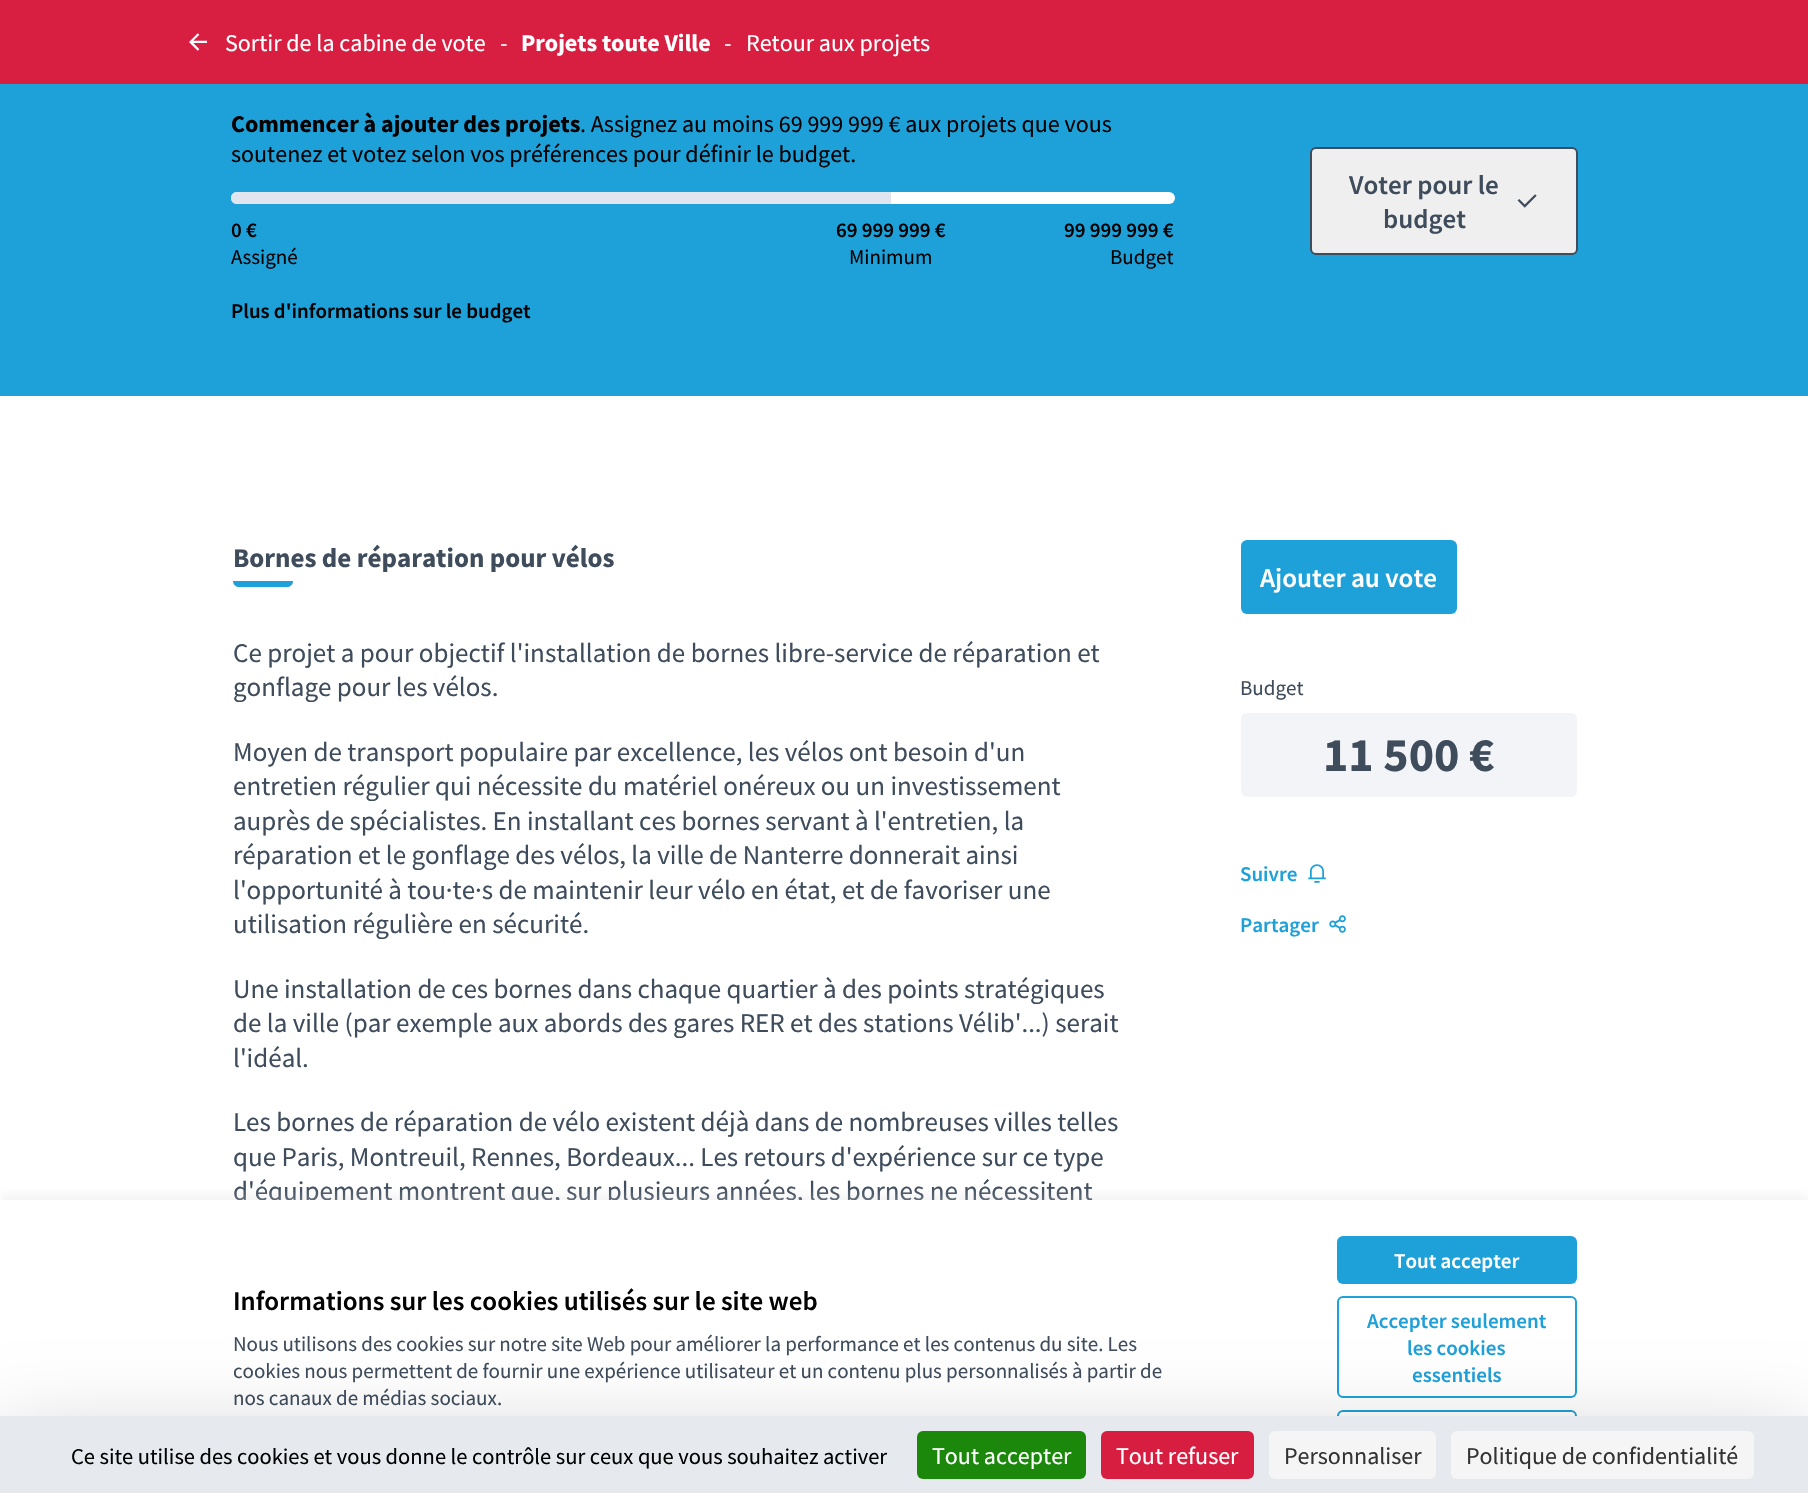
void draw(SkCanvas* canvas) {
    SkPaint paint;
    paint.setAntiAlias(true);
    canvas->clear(0xFFFFFFFF);
    paint.setColor(0xFFD81E41);
    canvas->drawRect(SkRect::MakeXYWH(0, 0, 1808, 84), paint);
    canvas->drawImageRect(SkImages::DeferredFromEncodedData(SkData::MakeFromFileName("img1.png")), SkRect::MakeXYWH(189, 33, 18, 18), SkSamplingOptions());
    SkFont font1(fontMgr->matchFamilyStyle("Source Sans Pro", SkFontStyle::Normal()), 24);
    font1.setSubpixel(true);
    paint.setColor(0xFFFFFFFF);
    canvas->drawString("Sortir de la cabine de vote", 225, 51, font1, paint);
    canvas->drawString("-", 500, 51, font1, paint);
    SkFont font2(fontMgr->matchFamilyStyle("Source Sans Pro", SkFontStyle::Bold()), 24);
    font2.setSubpixel(true);
    canvas->drawString("Projets toute Ville", 521, 51, font2, paint);
    canvas->drawString("-", 724, 51, font1, paint);
    canvas->drawString("Retour aux projets", 746, 51, font1, paint);
    paint.setColor(0xFF1EA0D8);
    canvas->drawRect(SkRect::MakeXYWH(0, 84, 1808, 312), paint);
    paint.setColor(0xFF020203);
    canvas->drawString("Commencer à ajouter des projets", 231, 132, font2, paint);
    canvas->drawString(". Assignez au moins 69 999 999 € aux projets que vous", 580, 132, font1, paint);
    canvas->drawString("soutenez et votez selon vos préférences pour définir le budget.", 231, 162, font1, paint);
    paint.setColor(0xFFFFFFFF);
    canvas->drawRoundRect(SkRect::MakeXYWH(231, 192, 944, 12), 6, 6, paint);
    paint.setColor(0xFFE1E5EF);
    canvas->drawPath(SkPathBuilder().moveTo(237, 192).lineTo(891, 192).lineTo(891, 204).lineTo(237, 204).cubicTo(233.5f, 204, 231, 201.5f, 231, 198).cubicTo(231, 194.5f, 233.5f, 192, 237, 192).close().detach(), paint);
    SkFont font3(fontMgr->matchFamilyStyle("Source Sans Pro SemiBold", SkFontStyle(600, SkFontStyle::kNormal_Width, SkFontStyle::kUpright_Slant)), 21);
    font3.setSubpixel(true);
    paint.setColor(0xFF020203);
    canvas->drawString("0 €", 231, 237, font3, paint);
    SkFont font4(fontMgr->matchFamilyStyle("Source Sans Pro", SkFontStyle::Normal()), 21);
    font4.setSubpixel(true);
    canvas->drawString("Assigné", 231, 264, font4, paint);
    canvas->drawString("69 999 999 €", 836, 237, font3, paint);
    canvas->drawString("Minimum", 849, 264, font4, paint);
    canvas->drawString("99 999 999 €", 1064, 237, font3, paint);
    canvas->drawString("Budget", 1110, 264, font4, paint);
    paint.setColor(0xFFEFEFEF);
    canvas->drawRoundRect(SkRect::MakeXYWH(1311, 148, 266, 106), 5, 5, paint);
    paint.setStyle(SkPaint::kStroke_Style);
    paint.setStrokeWidth(2);
    paint.setColor(0xFF3E4C5C);
    canvas->drawRoundRect(SkRect::MakeXYWH(1311, 148, 266, 106), 5, 5, paint);
    SkFont font5(fontMgr->matchFamilyStyle("Source Sans Pro SemiBold", SkFontStyle(600, SkFontStyle::kNormal_Width, SkFontStyle::kUpright_Slant)), 27);
    font5.setSubpixel(true);
    paint.setStyle(SkPaint::kFill_Style);
    canvas->drawString("Voter pour le", 1349, 194, font5, paint);
    canvas->drawImageRect(SkImages::DeferredFromEncodedData(SkData::MakeFromFileName("img2.png")), SkRect::MakeXYWH(1517, 194, 20, 14), SkSamplingOptions());
    canvas->drawString("budget", 1383, 228, font5, paint);
    paint.setColor(0xFF020203);
    canvas->drawString("Plus d'informations sur le budget", 231, 318, font3, paint);
    SkFont font6(fontMgr->matchFamilyStyle("Source Sans Pro", SkFontStyle::Bold()), 27);
    font6.setSubpixel(true);
    paint.setColor(0xFF3E4C5C);
    canvas->drawString("Bornes de réparation pour vélos", 233, 567, font6, paint);
    paint.setColor(0xFF1EA0D8);
    canvas->drawPath(SkPathBuilder().moveTo(233, 581).lineTo(293, 581).cubicTo(293, 584.5f, 290.5f, 587, 287, 587).lineTo(239, 587).cubicTo(235.5f, 587, 233, 584.5f, 233, 581).close().detach(), paint);
    SkFont font7(fontMgr->matchFamilyStyle("Source Sans Pro", SkFontStyle::Normal()), 27);
    font7.setSubpixel(true);
    paint.setColor(0xFF3E4C5C);
    canvas->drawString("Ce projet a pour objectif l'installation de bornes libre-service de réparation et", 233, 662, font7, paint);
    canvas->drawString("gonflage pour les vélos.", 233, 696, font7, paint);
    canvas->drawString("Moyen de transport populaire par excellence, les vélos ont besoin d'un", 233, 761, font7, paint);
    canvas->drawString("entretien régulier qui nécessite du matériel onéreux ou un investissement", 233, 795, font7, paint);
    canvas->drawString("auprès de spécialistes. En installant ces bornes servant à l'entretien, la", 233, 830, font7, paint);
    canvas->drawString("réparation et le gonflage des vélos, la ville de Nanterre donnerait ainsi", 233, 864, font7, paint);
    canvas->drawString("l'opportunité à tou·te·s de maintenir leur vélo en état, et de favoriser une", 233, 899, font7, paint);
    canvas->drawString("utilisation régulière en sécurité.", 233, 933, font7, paint);
    canvas->drawString("Une installation de ces bornes dans chaque quartier à des points stratégiques", 233, 998, font7, paint);
    canvas->drawString("de la ville (par exemple aux abords des gares RER et des stations Vélib'...) serait", 233, 1032, font7, paint);
    canvas->drawString("l'idéal.", 233, 1067, font7, paint);
    canvas->drawString("Les bornes de réparation de vélo existent déjà dans de nombreuses villes telles", 233, 1131, font7, paint);
    canvas->drawString("que Paris, Montreuil, Rennes, Bordeaux... Les retours d'expérience sur ce type", 233, 1166, font7, paint);
    canvas->drawString("d'équipement montrent que, sur plusieurs années, les bornes ne nécessitent", 233, 1200, font7, paint);
    paint.setColor(0xFF1EA0D8);
    canvas->drawRoundRect(SkRect::MakeXYWH(1241, 540, 216, 74), 6, 6, paint);
    paint.setColor(0xFFFFFFFF);
    canvas->drawString("Ajouter au vote", 1260, 587, font5, paint);
    paint.setColor(0xFF3E4C5C);
    canvas->drawString("Budget", 1240, 695, font4, paint);
    paint.setColor(0xFFF3F4F7);
    canvas->drawRoundRect(SkRect::MakeXYWH(1241, 713, 336, 84), 6, 6, paint);
    SkFont font8(fontMgr->matchFamilyStyle("Source Sans Pro", SkFontStyle::Bold()), 48);
    font8.setSubpixel(true);
    paint.setColor(0xFF3E4C5C);
    canvas->drawString("11 500 €", 1323, 771, font8, paint);
    paint.setColor(0xFF1EA0D8);
    canvas->drawString("Suivre", 1240, 881, font3, paint);
    canvas->drawImageRect(SkImages::DeferredFromEncodedData(SkData::MakeFromFileName("img3.png")), SkRect::MakeXYWH(1308, 864, 18, 19), SkSamplingOptions());
    canvas->drawString("Partager", 1240, 932, font3, paint);
    canvas->drawImageRect(SkImages::DeferredFromEncodedData(SkData::MakeFromFileName("img4.png")), SkRect::MakeXYWH(1329, 915, 17, 18), SkSamplingOptions());
    paint.setColor(0x40D3D3D3);
    paint.setMaskFilter(SkMaskFilter::MakeBlur(kNormal_SkBlurStyle, 4.5f));
    canvas->drawRect(SkRect::MakeXYWH(0, 1194, 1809, 294), paint);
    paint.setMaskFilter(nullptr);
    paint.setColor(0xFFFFFFFF);
    canvas->drawRect(SkRect::MakeXYWH(0, 1200, 1808, 216), paint);
    paint.setColor(0xFF020203);
    canvas->drawString("Informations sur les cookies utilisés sur le site web", 233, 1310, font5, paint);
    paint.setColor(0xFF3E4C5C);
    canvas->drawString("Nous utilisons des cookies sur notre site Web pour améliorer la performance et les contenus du site. Les", 233, 1351, font4, paint);
    canvas->drawString("cookies nous permettent de fournir une expérience utilisateur et un contenu plus personnalisés à partir de", 233, 1378, font4, paint);
    canvas->drawString("nos canaux de médias sociaux.", 233, 1405, font4, paint);
    paint.setColor(0xFF1EA0D8);
    canvas->drawRoundRect(SkRect::MakeXYWH(1337, 1236, 240, 48), 6, 6, paint);
    paint.setColor(0xFFFFFFFF);
    canvas->drawString("Tout accepter", 1394, 1268, font3, paint);
    paint.setStyle(SkPaint::kStroke_Style);
    paint.setColor(0xFF1EA0D8);
    canvas->drawRoundRect(SkRect::MakeXYWH(1338, 1297, 238, 100), 5, 5, paint);
    paint.setStyle(SkPaint::kFill_Style);
    canvas->drawString("Accepter seulement", 1367, 1328, font3, paint);
    canvas->drawString("les cookies", 1407, 1355, font3, paint);
    canvas->drawString("essentiels", 1412, 1382, font3, paint);
    paint.setStyle(SkPaint::kStroke_Style);
    canvas->drawRoundRect(SkRect::MakeXYWH(1338, 1411, 238, 46), 5, 5, paint);
    paint.setStyle(SkPaint::kFill_Style);
    paint.setColor(0x40000000);
    paint.setMaskFilter(SkMaskFilter::MakeBlur(kNormal_SkBlurStyle, 45));
    canvas->drawRect(SkRect::MakeXYWH(0, 1446, 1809, 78), paint);
    paint.setMaskFilter(nullptr);
    paint.setColor(0xFFE6EAEE);
    canvas->drawRect(SkRect::MakeXYWH(0, 1416, 1808, 77), paint);
    SkFont font9(fontMgr->matchFamilyStyle("Source Sans Pro", SkFontStyle::Normal()), 22.5f);
    font9.setSubpixel(true);
    paint.setColor(0xFF020203);
    canvas->drawString("Ce site utilise des cookies et vous donne le contrôle sur ceux que vous souhaitez activer", 71, 1464, font9, paint);
    paint.setColor(0xFF1B870B);
    canvas->drawRoundRect(SkRect::MakeXYWH(917, 1431, 169, 48), 6, 6, paint);
    paint.setColor(0xFFFFFFFF);
    canvas->drawString("Tout accepter", 932, 1464, font1, paint);
    paint.setColor(0xFFD81E40);
    canvas->drawRoundRect(SkRect::MakeXYWH(1101, 1431, 153, 48), 6, 6, paint);
    paint.setColor(0xFFFFFFFF);
    canvas->drawString("Tout refuser", 1116, 1464, font1, paint);
    paint.setColor(0xFFF5F5F5);
    canvas->drawRoundRect(SkRect::MakeXYWH(1269, 1431, 167, 48), 6, 6, paint);
    paint.setColor(0xFF333333);
    canvas->drawString("Personnaliser", 1284, 1464, font1, paint);
    paint.setColor(0xFFF5F5F5);
    canvas->drawRoundRect(SkRect::MakeXYWH(1451, 1431, 303, 48), 6, 6, paint);
    paint.setColor(0xFF333333);
    canvas->drawString("Politique de confidentialité", 1466, 1464, font1, paint);
}
